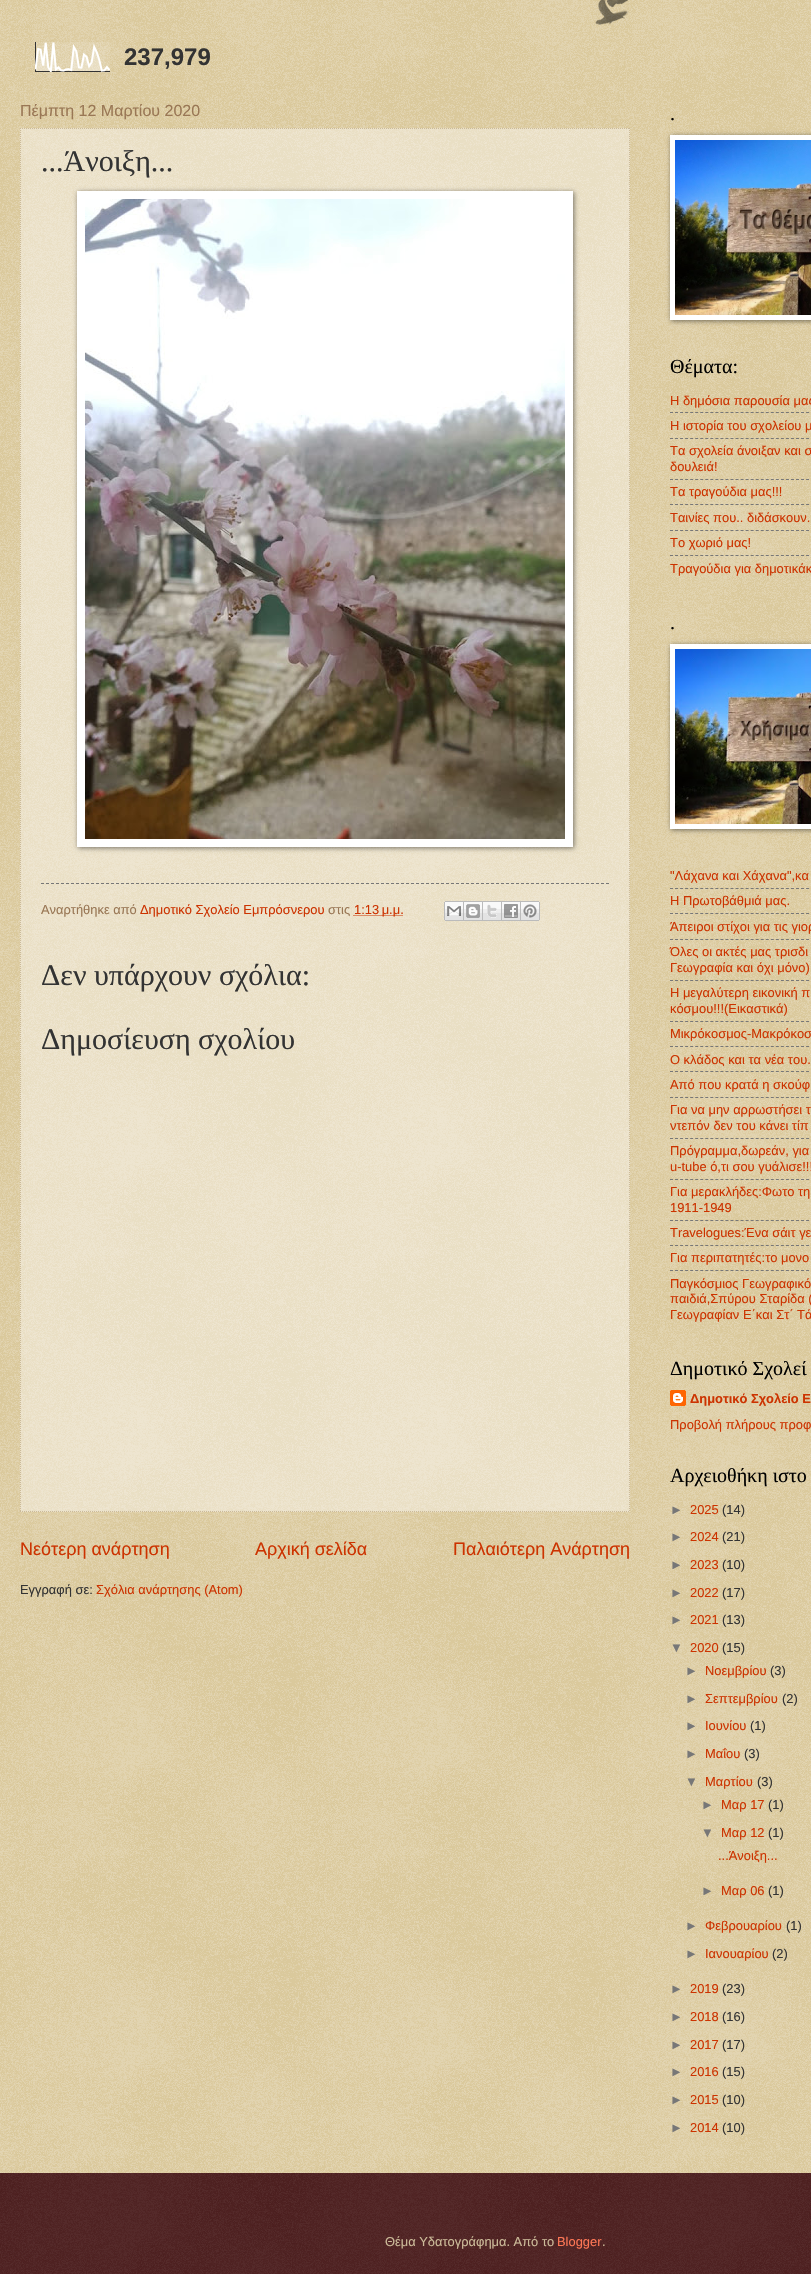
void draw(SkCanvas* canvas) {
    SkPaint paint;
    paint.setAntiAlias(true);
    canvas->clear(0xFFC0A154);
    canvas->drawImageRect(SkImages::DeferredFromEncodedData(SkData::MakeFromFileName("img1.png")), SkRect::MakeXYWH(0, 0, 811, 2173), SkSamplingOptions());
    canvas->drawImageRect(SkImages::DeferredFromEncodedData(SkData::MakeFromFileName("img2.png")), SkRect::MakeXYWH(595, 0, 34, 25), SkSamplingOptions());
    canvas->drawImageRect(SkImages::DeferredFromEncodedData(SkData::MakeFromFileName("img3.png")), SkRect::MakeXYWH(35, 42, 75, 30), SkSamplingOptions());
    SkFont font1(fontMgr->matchFamilyStyle("Liberation Sans", SkFontStyle::Bold()), 24);
    font1.setSubpixel(true);
    paint.setColor(0xFF333333);
    canvas->drawString("237,979", 124, 65, font1, paint);
    SkFont font2(fontMgr->matchFamilyStyle("Liberation Sans", SkFontStyle::Normal()), 16);
    font2.setSubpixel(true);
    paint.setColor(0xFF997755);
    canvas->drawString("Πέμπτη 12 Μαρτίου 2020", 20, 116, font2, paint);
    paint.setColor(0x66FFFFFF);
    canvas->drawRect(SkRect::MakeXYWH(20, 128, 610, 1384), paint);
    paint.setStyle(SkPaint::kStroke_Style);
    paint.setStrokeWidth(1);
    paint.setColor(0xFFCCBB99);
    paint.setPathEffect(SkDashPathEffect::Make({{1, 1}}, 0));
    canvas->drawPath(SkPathBuilder().moveTo(20, 128.5f).lineTo(630, 128.5f).detach(), paint);
    paint.setPathEffect(nullptr);
    paint.setPathEffect(SkDashPathEffect::Make({{1, 1}}, 0));
    canvas->drawPath(SkPathBuilder().moveTo(629.5f, 128).lineTo(629.5f, 1512).detach(), paint);
    paint.setPathEffect(nullptr);
    paint.setPathEffect(SkDashPathEffect::Make({{1, 1}}, 0));
    canvas->drawPath(SkPathBuilder().moveTo(20, 1511.5f).lineTo(630, 1511.5f).detach(), paint);
    paint.setPathEffect(nullptr);
    paint.setPathEffect(SkDashPathEffect::Make({{1, 1}}, 0));
    canvas->drawPath(SkPathBuilder().moveTo(20.5f, 128).lineTo(20.5f, 1512).detach(), paint);
    paint.setPathEffect(nullptr);
    SkFont font3(fontMgr->matchFamilyStyle("Liberation Serif", SkFontStyle::Normal()), 30);
    font3.setSubpixel(true);
    paint.setStyle(SkPaint::kFill_Style);
    paint.setColor(0xFF333333);
    canvas->drawString("...Άνοιξη...", 41, 171, font3, paint);
    paint.setColor(0x80000000);
    paint.setMaskFilter(SkMaskFilter::MakeBlur(kNormal_SkBlurStyle, 2.5f));
    canvas->drawRect(SkRect::MakeXYWH(78, 192, 496, 656), paint);
    paint.setMaskFilter(nullptr);
    paint.setColor(0xFFFFFFFF);
    canvas->drawRect(SkRect::MakeXYWH(77, 191, 496, 656), paint);
    canvas->drawImageRect(SkImages::DeferredFromEncodedData(SkData::MakeFromFileName("img4.png")), SkRect::MakeXYWH(85, 199, 480, 640), SkSamplingOptions());
    paint.setStyle(SkPaint::kStroke_Style);
    paint.setColor(0xFF777777);
    paint.setPathEffect(SkDashPathEffect::Make({{3, 2}}, 0));
    canvas->drawPath(SkPathBuilder().moveTo(41, 883.5f).lineTo(609, 883.5f).detach(), paint);
    paint.setPathEffect(nullptr);
    SkFont font4(fontMgr->matchFamilyStyle("Liberation Sans", SkFontStyle::Normal()), 12.9f);
    font4.setSubpixel(true);
    paint.setStyle(SkPaint::kFill_Style);
    paint.setColor(0xFF997755);
    canvas->drawString("Αναρτήθηκε από", 41, 914, font4, paint);
    paint.setColor(0xFFCC3300);
    canvas->drawString("Δημοτικό Σχολείο Εμπρόσνερου", 140, 914, font4, paint);
    paint.setColor(0xFF997755);
    canvas->drawString("στις", 328, 914, font4, paint);
    paint.setStyle(SkPaint::kStroke_Style);
    paint.setColor(0xFFCC3300);
    paint.setPathEffect(SkDashPathEffect::Make({{1, 1}}, 0));
    canvas->drawPath(SkPathBuilder().moveTo(353.5f, 915.5f).lineTo(403, 915.5f).detach(), paint);
    paint.setPathEffect(nullptr);
    paint.setStyle(SkPaint::kFill_Style);
    canvas->drawString("1:13 μ.μ.", 354, 914, font4, paint);
    canvas->drawImageRect(SkImages::DeferredFromEncodedData(SkData::MakeFromFileName("img5.png")), SkRect::MakeXYWH(444, 901, 20, 20), SkSamplingOptions());
    canvas->drawImageRect(SkImages::DeferredFromEncodedData(SkData::MakeFromFileName("img6.png")), SkRect::MakeXYWH(464, 901, 19, 20), SkSamplingOptions());
    canvas->drawImageRect(SkImages::DeferredFromEncodedData(SkData::MakeFromFileName("img7.png")), SkRect::MakeXYWH(483, 901, 19, 20), SkSamplingOptions());
    canvas->drawImageRect(SkImages::DeferredFromEncodedData(SkData::MakeFromFileName("img8.png")), SkRect::MakeXYWH(502, 901, 19, 20), SkSamplingOptions());
    canvas->drawImageRect(SkImages::DeferredFromEncodedData(SkData::MakeFromFileName("img9.png")), SkRect::MakeXYWH(521, 901, 19, 20), SkSamplingOptions());
    paint.setColor(0xFF333333);
    canvas->drawString("Δεν υπάρχουν σχόλια:", 41, 985, font3, paint);
    canvas->drawString("Δημοσίευση σχολίου", 41, 1049, font3, paint);
    SkFont font5(fontMgr->matchFamilyStyle("Liberation Sans", SkFontStyle::Normal()), 18);
    font5.setSubpixel(true);
    paint.setColor(0xFFCC3300);
    canvas->drawString("Νεότερη ανάρτηση", 20, 1555, font5, paint);
    canvas->drawString("Αρχική σελίδα", 255, 1555, font5, paint);
    canvas->drawString("Παλαιότερη Ανάρτηση", 453, 1555, font5, paint);
    paint.setColor(0xFF333333);
    canvas->drawString("Εγγραφή σε:", 20, 1594, font4, paint);
    paint.setColor(0xFFCC3300);
    canvas->drawString("Σχόλια ανάρτησης (Atom)", 96, 1594, font4, paint);
    SkFont font6(fontMgr->matchFamilyStyle("Liberation Serif", SkFontStyle::Normal()), 20);
    font6.setSubpixel(true);
    paint.setColor(0xFF000000);
    canvas->drawString(".", 670, 120, font6, paint);
    paint.setColor(0x80000000);
    paint.setMaskFilter(SkMaskFilter::MakeBlur(kNormal_SkBlurStyle, 2.5f));
    canvas->drawRect(SkRect::MakeXYWH(671, 136, 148, 185), paint);
    paint.setMaskFilter(nullptr);
    paint.setColor(0xFFFFFFFF);
    canvas->drawRect(SkRect::MakeXYWH(670, 135, 141, 185), paint);
    canvas->drawImageRect(SkImages::DeferredFromEncodedData(SkData::MakeFromFileName("img10.png")), SkRect::MakeXYWH(675, 140, 136, 175), SkSamplingOptions());
    paint.setColor(0xFF000000);
    canvas->drawString("Θέματα:", 670, 373, font6, paint);
    paint.setColor(0xFFCC3300);
    canvas->drawString("Η δημόσια παρουσία μας", 670, 405, font4, paint);
    paint.setStyle(SkPaint::kStroke_Style);
    paint.setColor(0xFF777777);
    paint.setPathEffect(SkDashPathEffect::Make({{3, 2.04f}}, 0));
    canvas->drawPath(SkPathBuilder().moveTo(670, 412.5f).lineTo(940, 412.5f).detach(), paint);
    paint.setPathEffect(nullptr);
    paint.setStyle(SkPaint::kFill_Style);
    paint.setColor(0xFFCC3300);
    canvas->drawString("Η ιστορία του σχολείου μ", 670, 430, font4, paint);
    paint.setStyle(SkPaint::kStroke_Style);
    paint.setColor(0xFF777777);
    paint.setPathEffect(SkDashPathEffect::Make({{3, 2.04f}}, 0));
    canvas->drawPath(SkPathBuilder().moveTo(670, 438.5f).lineTo(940, 438.5f).detach(), paint);
    paint.setPathEffect(nullptr);
    paint.setStyle(SkPaint::kFill_Style);
    paint.setColor(0xFFCC3300);
    canvas->drawString("Τα σχολεία άνοιξαν και σ", 670, 455, font4, paint);
    canvas->drawString("δουλειά!", 670, 471, font4, paint);
    paint.setStyle(SkPaint::kStroke_Style);
    paint.setColor(0xFF777777);
    paint.setPathEffect(SkDashPathEffect::Make({{3, 2.04f}}, 0));
    canvas->drawPath(SkPathBuilder().moveTo(670, 479.5f).lineTo(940, 479.5f).detach(), paint);
    paint.setPathEffect(nullptr);
    paint.setStyle(SkPaint::kFill_Style);
    paint.setColor(0xFFCC3300);
    canvas->drawString("Τα τραγούδια μας!!!", 670, 496, font4, paint);
    paint.setStyle(SkPaint::kStroke_Style);
    paint.setColor(0xFF777777);
    paint.setPathEffect(SkDashPathEffect::Make({{3, 2.04f}}, 0));
    canvas->drawPath(SkPathBuilder().moveTo(670, 504.5f).lineTo(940, 504.5f).detach(), paint);
    paint.setPathEffect(nullptr);
    paint.setStyle(SkPaint::kFill_Style);
    paint.setColor(0xFFCC3300);
    canvas->drawString("Ταινίες που.. διδάσκουν.", 670, 522, font4, paint);
    paint.setStyle(SkPaint::kStroke_Style);
    paint.setColor(0xFF777777);
    paint.setPathEffect(SkDashPathEffect::Make({{3, 2.04f}}, 0));
    canvas->drawPath(SkPathBuilder().moveTo(670, 530.5f).lineTo(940, 530.5f).detach(), paint);
    paint.setPathEffect(nullptr);
    paint.setStyle(SkPaint::kFill_Style);
    paint.setColor(0xFFCC3300);
    canvas->drawString("Το χωριό μας!", 670, 547, font4, paint);
    paint.setStyle(SkPaint::kStroke_Style);
    paint.setColor(0xFF777777);
    paint.setPathEffect(SkDashPathEffect::Make({{3, 2.04f}}, 0));
    canvas->drawPath(SkPathBuilder().moveTo(670, 555.5f).lineTo(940, 555.5f).detach(), paint);
    paint.setPathEffect(nullptr);
    paint.setStyle(SkPaint::kFill_Style);
    paint.setColor(0xFFCC3300);
    canvas->drawString("Τραγούδια για δημοτικάκ", 670, 573, font4, paint);
    paint.setColor(0xFF000000);
    canvas->drawString(".", 670, 629, font6, paint);
    paint.setColor(0x80000000);
    paint.setMaskFilter(SkMaskFilter::MakeBlur(kNormal_SkBlurStyle, 2.5f));
    canvas->drawRect(SkRect::MakeXYWH(671, 645, 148, 185), paint);
    paint.setMaskFilter(nullptr);
    paint.setColor(0xFFFFFFFF);
    canvas->drawRect(SkRect::MakeXYWH(670, 644, 141, 185), paint);
    canvas->drawImageRect(SkImages::DeferredFromEncodedData(SkData::MakeFromFileName("img11.png")), SkRect::MakeXYWH(675, 649, 136, 175), SkSamplingOptions());
    paint.setColor(0xFFCC3300);
    canvas->drawString("\"Λάχανα και Χάχανα\",κα", 670, 880, font4, paint);
    paint.setStyle(SkPaint::kStroke_Style);
    paint.setColor(0xFF777777);
    paint.setPathEffect(SkDashPathEffect::Make({{3, 2.04f}}, 0));
    canvas->drawPath(SkPathBuilder().moveTo(670, 888.5f).lineTo(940, 888.5f).detach(), paint);
    paint.setPathEffect(nullptr);
    paint.setStyle(SkPaint::kFill_Style);
    paint.setColor(0xFFCC3300);
    canvas->drawString("Η Πρωτοβάθμιά μας.", 670, 905, font4, paint);
    paint.setStyle(SkPaint::kStroke_Style);
    paint.setColor(0xFF777777);
    paint.setPathEffect(SkDashPathEffect::Make({{3, 2.04f}}, 0));
    canvas->drawPath(SkPathBuilder().moveTo(670, 913.5f).lineTo(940, 913.5f).detach(), paint);
    paint.setPathEffect(nullptr);
    paint.setStyle(SkPaint::kFill_Style);
    paint.setColor(0xFFCC3300);
    canvas->drawString("Άπειροι στίχοι για τις γιορ", 670, 931, font4, paint);
    paint.setStyle(SkPaint::kStroke_Style);
    paint.setColor(0xFF777777);
    paint.setPathEffect(SkDashPathEffect::Make({{3, 2.04f}}, 0));
    canvas->drawPath(SkPathBuilder().moveTo(670, 939.5f).lineTo(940, 939.5f).detach(), paint);
    paint.setPathEffect(nullptr);
    paint.setStyle(SkPaint::kFill_Style);
    paint.setColor(0xFFCC3300);
    canvas->drawString("Όλες οι ακτές μας τρισδι", 670, 956, font4, paint);
    canvas->drawString("Γεωγραφία και όχι μόνο)", 670, 972, font4, paint);
    paint.setStyle(SkPaint::kStroke_Style);
    paint.setColor(0xFF777777);
    paint.setPathEffect(SkDashPathEffect::Make({{3, 2.04f}}, 0));
    canvas->drawPath(SkPathBuilder().moveTo(670, 980.5f).lineTo(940, 980.5f).detach(), paint);
    paint.setPathEffect(nullptr);
    paint.setStyle(SkPaint::kFill_Style);
    paint.setColor(0xFFCC3300);
    canvas->drawString("Η μεγαλύτερη εικονική π", 670, 997, font4, paint);
    canvas->drawString("κόσμου!!!(Εικαστικά)", 670, 1013, font4, paint);
    paint.setStyle(SkPaint::kStroke_Style);
    paint.setColor(0xFF777777);
    paint.setPathEffect(SkDashPathEffect::Make({{3, 2.04f}}, 0));
    canvas->drawPath(SkPathBuilder().moveTo(670, 1021.5f).lineTo(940, 1021.5f).detach(), paint);
    paint.setPathEffect(nullptr);
    paint.setStyle(SkPaint::kFill_Style);
    paint.setColor(0xFFCC3300);
    canvas->drawString("Μικρόκοσμος-Μακρόκοσ", 670, 1038, font4, paint);
    paint.setStyle(SkPaint::kStroke_Style);
    paint.setColor(0xFF777777);
    paint.setPathEffect(SkDashPathEffect::Make({{3, 2.04f}}, 0));
    canvas->drawPath(SkPathBuilder().moveTo(670, 1046.5f).lineTo(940, 1046.5f).detach(), paint);
    paint.setPathEffect(nullptr);
    paint.setStyle(SkPaint::kFill_Style);
    paint.setColor(0xFFCC3300);
    canvas->drawString("Ο κλάδος και τα νέα του.", 670, 1064, font4, paint);
    paint.setStyle(SkPaint::kStroke_Style);
    paint.setColor(0xFF777777);
    paint.setPathEffect(SkDashPathEffect::Make({{3, 2.04f}}, 0));
    canvas->drawPath(SkPathBuilder().moveTo(670, 1071.5f).lineTo(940, 1071.5f).detach(), paint);
    paint.setPathEffect(nullptr);
    paint.setStyle(SkPaint::kFill_Style);
    paint.setColor(0xFFCC3300);
    canvas->drawString("Από που κρατά η σκούφ", 670, 1089, font4, paint);
    paint.setStyle(SkPaint::kStroke_Style);
    paint.setColor(0xFF777777);
    paint.setPathEffect(SkDashPathEffect::Make({{3, 2.04f}}, 0));
    canvas->drawPath(SkPathBuilder().moveTo(670, 1097.5f).lineTo(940, 1097.5f).detach(), paint);
    paint.setPathEffect(nullptr);
    paint.setStyle(SkPaint::kFill_Style);
    paint.setColor(0xFFCC3300);
    canvas->drawString("Για να μην αρρωστήσει τ", 670, 1114, font4, paint);
    canvas->drawString("ντεπόν δεν του κάνει τίπ", 670, 1130, font4, paint);
    paint.setStyle(SkPaint::kStroke_Style);
    paint.setColor(0xFF777777);
    paint.setPathEffect(SkDashPathEffect::Make({{3, 2.04f}}, 0));
    canvas->drawPath(SkPathBuilder().moveTo(670, 1138.5f).lineTo(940, 1138.5f).detach(), paint);
    paint.setPathEffect(nullptr);
    paint.setStyle(SkPaint::kFill_Style);
    paint.setColor(0xFFCC3300);
    canvas->drawString("Πρόγραμμα,δωρεάν, για", 670, 1155, font4, paint);
    canvas->drawString("u-tube ό,τι σου γυάλισε!!!", 670, 1171, font4, paint);
    paint.setStyle(SkPaint::kStroke_Style);
    paint.setColor(0xFF777777);
    paint.setPathEffect(SkDashPathEffect::Make({{3, 2.04f}}, 0));
    canvas->drawPath(SkPathBuilder().moveTo(670, 1179.5f).lineTo(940, 1179.5f).detach(), paint);
    paint.setPathEffect(nullptr);
    paint.setStyle(SkPaint::kFill_Style);
    paint.setColor(0xFFCC3300);
    canvas->drawString("Για μερακλήδες:Φωτο τη", 670, 1196, font4, paint);
    canvas->drawString("1911-1949", 670, 1212, font4, paint);
    paint.setStyle(SkPaint::kStroke_Style);
    paint.setColor(0xFF777777);
    paint.setPathEffect(SkDashPathEffect::Make({{3, 2.04f}}, 0));
    canvas->drawPath(SkPathBuilder().moveTo(670, 1220.5f).lineTo(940, 1220.5f).detach(), paint);
    paint.setPathEffect(nullptr);
    paint.setStyle(SkPaint::kFill_Style);
    paint.setColor(0xFFCC3300);
    canvas->drawString("Travelogues:Ένα σάιτ γε", 670, 1237, font4, paint);
    paint.setStyle(SkPaint::kStroke_Style);
    paint.setColor(0xFF777777);
    paint.setPathEffect(SkDashPathEffect::Make({{3, 2.04f}}, 0));
    canvas->drawPath(SkPathBuilder().moveTo(670, 1245.5f).lineTo(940, 1245.5f).detach(), paint);
    paint.setPathEffect(nullptr);
    paint.setStyle(SkPaint::kFill_Style);
    paint.setColor(0xFFCC3300);
    canvas->drawString("Για περιπατητές:το μονο", 670, 1262, font4, paint);
    paint.setStyle(SkPaint::kStroke_Style);
    paint.setColor(0xFF777777);
    paint.setPathEffect(SkDashPathEffect::Make({{3, 2.04f}}, 0));
    canvas->drawPath(SkPathBuilder().moveTo(670, 1270.5f).lineTo(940, 1270.5f).detach(), paint);
    paint.setPathEffect(nullptr);
    paint.setStyle(SkPaint::kFill_Style);
    paint.setColor(0xFFCC3300);
    canvas->drawString("Παγκόσμιος Γεωγραφικό", 670, 1288, font4, paint);
    canvas->drawString("παιδιά,Σπύρου Σταρίδα (", 670, 1303, font4, paint);
    canvas->drawString("Γεωγραφίαν Ε΄και Στ΄ Τά", 670, 1319, font4, paint);
    paint.setColor(0xFF000000);
    canvas->drawString("Δημοτικό Σχολεί", 670, 1375, font6, paint);
    canvas->drawImageRect(SkImages::DeferredFromEncodedData(SkData::MakeFromFileName("img12.png")), SkRect::MakeXYWH(670, 1390, 16, 16), SkSamplingOptions());
    SkFont font7(fontMgr->matchFamilyStyle("Liberation Sans", SkFontStyle::Bold()), 12.9f);
    font7.setSubpixel(true);
    paint.setColor(0xFFCC3300);
    canvas->drawString("Δημοτικό Σχολείο Ε", 690, 1403, font7, paint);
    canvas->drawString("Προβολή πλήρους προφ", 670, 1429, font4, paint);
    paint.setColor(0xFF000000);
    canvas->drawString("Αρχειοθήκη ιστο", 670, 1482, font6, paint);
    paint.setColor(0xFF777777);
    canvas->drawString("►", 670, 1514, font4, paint);
    paint.setColor(0xFFCC3300);
    canvas->drawString("2025", 690, 1514, font4, paint);
    paint.setColor(0xFF333333);
    canvas->drawString("(14)", 722, 1514, font4, paint);
    paint.setColor(0xFF777777);
    canvas->drawString("►", 670, 1541, font4, paint);
    paint.setColor(0xFFCC3300);
    canvas->drawString("2024", 690, 1541, font4, paint);
    paint.setColor(0xFF333333);
    canvas->drawString("(21)", 722, 1541, font4, paint);
    paint.setColor(0xFF777777);
    canvas->drawString("►", 670, 1569, font4, paint);
    paint.setColor(0xFFCC3300);
    canvas->drawString("2023", 690, 1569, font4, paint);
    paint.setColor(0xFF333333);
    canvas->drawString("(10)", 722, 1569, font4, paint);
    paint.setColor(0xFF777777);
    canvas->drawString("►", 670, 1597, font4, paint);
    paint.setColor(0xFFCC3300);
    canvas->drawString("2022", 690, 1597, font4, paint);
    paint.setColor(0xFF333333);
    canvas->drawString("(17)", 722, 1597, font4, paint);
    paint.setColor(0xFF777777);
    canvas->drawString("►", 670, 1624, font4, paint);
    paint.setColor(0xFFCC3300);
    canvas->drawString("2021", 690, 1624, font4, paint);
    paint.setColor(0xFF333333);
    canvas->drawString("(13)", 722, 1624, font4, paint);
    paint.setColor(0xFF777777);
    canvas->drawString("▼", 670, 1652, font4, paint);
    paint.setColor(0xFFCC3300);
    canvas->drawString("2020", 690, 1652, font4, paint);
    paint.setColor(0xFF333333);
    canvas->drawString("(15)", 722, 1652, font4, paint);
    paint.setColor(0xFF777777);
    canvas->drawString("►", 685, 1675, font4, paint);
    paint.setColor(0xFFCC3300);
    canvas->drawString("Νοεμβρίου", 705, 1675, font4, paint);
    paint.setColor(0xFF333333);
    canvas->drawString("(3)", 770, 1675, font4, paint);
    paint.setColor(0xFF777777);
    canvas->drawString("►", 685, 1703, font4, paint);
    paint.setColor(0xFFCC3300);
    canvas->drawString("Σεπτεμβρίου", 705, 1703, font4, paint);
    paint.setColor(0xFF333333);
    canvas->drawString("(2)", 782, 1703, font4, paint);
    paint.setColor(0xFF777777);
    canvas->drawString("►", 685, 1730, font4, paint);
    paint.setColor(0xFFCC3300);
    canvas->drawString("Ιουνίου", 705, 1730, font4, paint);
    paint.setColor(0xFF333333);
    canvas->drawString("(1)", 750, 1730, font4, paint);
    paint.setColor(0xFF777777);
    canvas->drawString("►", 685, 1758, font4, paint);
    paint.setColor(0xFFCC3300);
    canvas->drawString("Μαΐου", 705, 1758, font4, paint);
    paint.setColor(0xFF333333);
    canvas->drawString("(3)", 744, 1758, font4, paint);
    paint.setColor(0xFF777777);
    canvas->drawString("▼", 685, 1786, font4, paint);
    paint.setColor(0xFFCC3300);
    canvas->drawString("Μαρτίου", 705, 1786, font4, paint);
    paint.setColor(0xFF333333);
    canvas->drawString("(3)", 757, 1786, font4, paint);
    paint.setColor(0xFF777777);
    canvas->drawString("►", 701, 1809, font4, paint);
    paint.setColor(0xFFCC3300);
    canvas->drawString("Μαρ 17", 721, 1809, font4, paint);
    paint.setColor(0xFF333333);
    canvas->drawString("(1)", 768, 1809, font4, paint);
    paint.setColor(0xFF777777);
    canvas->drawString("▼", 701, 1837, font4, paint);
    paint.setColor(0xFFCC3300);
    canvas->drawString("Μαρ 12", 721, 1837, font4, paint);
    paint.setColor(0xFF333333);
    canvas->drawString("(1)", 768, 1837, font4, paint);
    paint.setColor(0xFFCC3300);
    canvas->drawString("...Άνοιξη...", 718, 1860, font4, paint);
    paint.setColor(0xFF777777);
    canvas->drawString("►", 701, 1895, font4, paint);
    paint.setColor(0xFFCC3300);
    canvas->drawString("Μαρ 06", 721, 1895, font4, paint);
    paint.setColor(0xFF333333);
    canvas->drawString("(1)", 768, 1895, font4, paint);
    paint.setColor(0xFF777777);
    canvas->drawString("►", 685, 1930, font4, paint);
    paint.setColor(0xFFCC3300);
    canvas->drawString("Φεβρουαρίου", 705, 1930, font4, paint);
    paint.setColor(0xFF333333);
    canvas->drawString("(1)", 786, 1930, font4, paint);
    paint.setColor(0xFF777777);
    canvas->drawString("►", 685, 1958, font4, paint);
    paint.setColor(0xFFCC3300);
    canvas->drawString("Ιανουαρίου", 705, 1958, font4, paint);
    paint.setColor(0xFF333333);
    canvas->drawString("(2)", 772, 1958, font4, paint);
    paint.setColor(0xFF777777);
    canvas->drawString("►", 670, 1993, font4, paint);
    paint.setColor(0xFFCC3300);
    canvas->drawString("2019", 690, 1993, font4, paint);
    paint.setColor(0xFF333333);
    canvas->drawString("(23)", 722, 1993, font4, paint);
    paint.setColor(0xFF777777);
    canvas->drawString("►", 670, 2021, font4, paint);
    paint.setColor(0xFFCC3300);
    canvas->drawString("2018", 690, 2021, font4, paint);
    paint.setColor(0xFF333333);
    canvas->drawString("(16)", 722, 2021, font4, paint);
    paint.setColor(0xFF777777);
    canvas->drawString("►", 670, 2049, font4, paint);
    paint.setColor(0xFFCC3300);
    canvas->drawString("2017", 690, 2049, font4, paint);
    paint.setColor(0xFF333333);
    canvas->drawString("(17)", 722, 2049, font4, paint);
    paint.setColor(0xFF777777);
    canvas->drawString("►", 670, 2076, font4, paint);
    paint.setColor(0xFFCC3300);
    canvas->drawString("2016", 690, 2076, font4, paint);
    paint.setColor(0xFF333333);
    canvas->drawString("(15)", 722, 2076, font4, paint);
    paint.setColor(0xFF777777);
    canvas->drawString("►", 670, 2104, font4, paint);
    paint.setColor(0xFFCC3300);
    canvas->drawString("2015", 690, 2104, font4, paint);
    paint.setColor(0xFF333333);
    canvas->drawString("(10)", 722, 2104, font4, paint);
    paint.setColor(0xFF777777);
    canvas->drawString("►", 670, 2132, font4, paint);
    paint.setColor(0xFFCC3300);
    canvas->drawString("2014", 690, 2132, font4, paint);
    paint.setColor(0xFF333333);
    canvas->drawString("(10)", 722, 2132, font4, paint);
    paint.setColor(0xFF330000);
    canvas->drawRect(SkRect::MakeXYWH(0, 2173, 811, 101), paint);
    canvas->drawImageRect(SkImages::DeferredFromEncodedData(SkData::MakeFromFileName("img13.png")), SkRect::MakeXYWH(0, 2173, 811, 101), SkSamplingOptions());
    paint.setColor(0xFFCCBB99);
    canvas->drawString("Θέμα Υδατογράφημα. Από το", 385, 2246, font4, paint);
    paint.setColor(0xFFFF7755);
    canvas->drawString("Blogger", 557, 2246, font4, paint);
    paint.setColor(0xFFCCBB99);
    canvas->drawString(".", 602, 2246, font4, paint);
}
